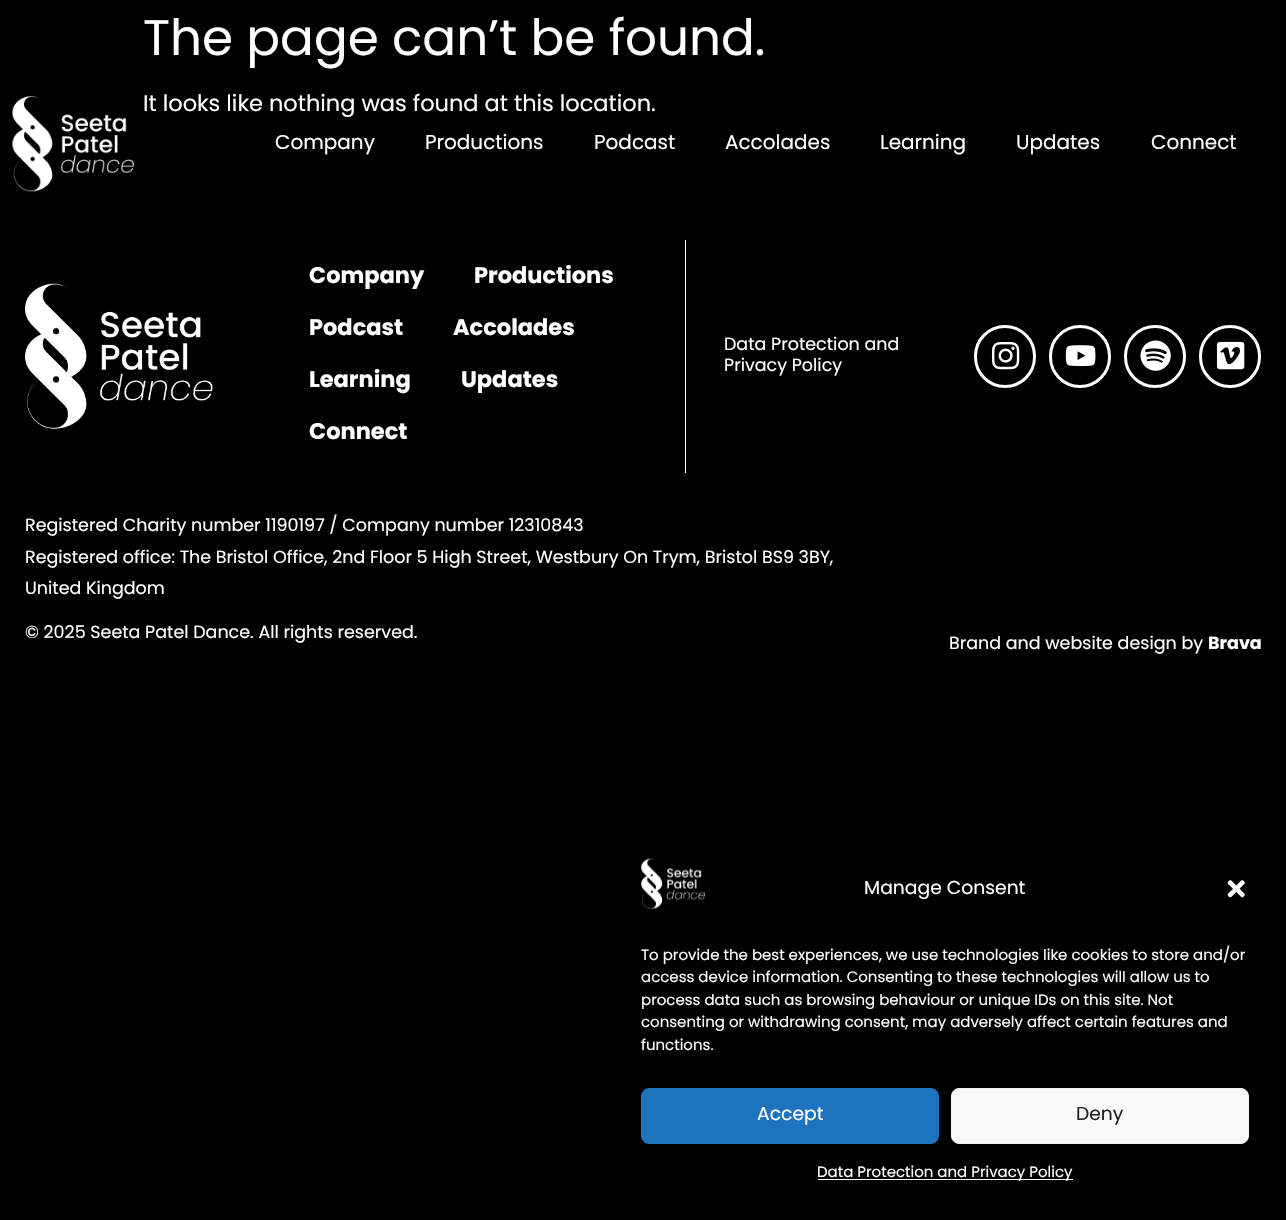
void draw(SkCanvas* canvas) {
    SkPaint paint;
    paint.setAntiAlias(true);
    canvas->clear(0xFF000000);
    SkFont font1(fontMgr->matchFamilyStyle("Poppins", SkFontStyle::Normal()), 50);
    font1.setSubpixel(true);
    paint.setColor(0xFFFFFFFF);
    canvas->drawString("The page can’t be found.", 143, 55, font1, paint);
    SkFont font2(fontMgr->matchFamilyStyle("Poppins", SkFontStyle::Normal()), 22.5f);
    font2.setSubpixel(true);
    canvas->drawString("It looks like nothing was found at this location.", 143, 111, font2, paint);
    canvas->drawImageRect(SkImages::DeferredFromEncodedData(SkData::MakeFromFileName("img1.png")), SkRect::MakeXYWH(12, 96, 122, 96), SkSamplingOptions());
    SkFont font3(fontMgr->matchFamilyStyle("Poppins", SkFontStyle::Normal()), 20);
    font3.setSubpixel(true);
    canvas->drawString("Company", 275, 149, font3, paint);
    canvas->drawString("Productions", 425, 149, font3, paint);
    canvas->drawString("Podcast", 594, 149, font3, paint);
    canvas->drawString("Accolades", 725, 149, font3, paint);
    canvas->drawString("Learning", 880, 149, font3, paint);
    canvas->drawString("Updates", 1016, 149, font3, paint);
    canvas->drawString("Connect", 1151, 149, font3, paint);
    canvas->drawRect(SkRect::MakeXYWH(685, 240, 1, 233), paint);
    canvas->drawImageRect(SkImages::DeferredFromEncodedData(SkData::MakeFromFileName("img2.png")), SkRect::MakeXYWH(25, 283, 188, 146), SkSamplingOptions());
    SkFont font4(fontMgr->matchFamilyStyle("Poppins", SkFontStyle::Bold()), 22.5f);
    font4.setSubpixel(true);
    canvas->drawString("Company", 309, 283, font4, paint);
    canvas->drawString("Productions", 474, 283, font4, paint);
    canvas->drawString("Podcast", 309, 335, font4, paint);
    canvas->drawString("Accolades", 453, 335, font4, paint);
    canvas->drawString("Learning", 309, 387, font4, paint);
    canvas->drawString("Updates", 461, 387, font4, paint);
    canvas->drawString("Connect", 309, 439, font4, paint);
    SkFont font5(fontMgr->matchFamilyStyle("Poppins", SkFontStyle::Normal()), 17.5f);
    font5.setSubpixel(true);
    canvas->drawString("Data Protection and", 724, 350, font5, paint);
    canvas->drawString("Privacy Policy", 724, 371, font5, paint);
    paint.setStyle(SkPaint::kStroke_Style);
    paint.setStrokeWidth(3);
    canvas->drawRoundRect(SkRect::MakeXYWH(975.5f, 326.5f, 59, 60), 29.5f, 29.5f, paint);
    canvas->drawImageRect(SkImages::DeferredFromEncodedData(SkData::MakeFromFileName("img3.png")), SkRect::MakeXYWH(991, 341, 29, 29), SkSamplingOptions());
    canvas->drawRoundRect(SkRect::MakeXYWH(1050.5f, 326.5f, 59, 60), 29.5f, 29.5f, paint);
    canvas->drawImageRect(SkImages::DeferredFromEncodedData(SkData::MakeFromFileName("img4.png")), SkRect::MakeXYWH(1065, 345, 31, 22), SkSamplingOptions());
    canvas->drawRoundRect(SkRect::MakeXYWH(1125.5f, 326.5f, 59, 60), 29.5f, 29.5f, paint);
    canvas->drawImageRect(SkImages::DeferredFromEncodedData(SkData::MakeFromFileName("img5.png")), SkRect::MakeXYWH(1140, 340, 31, 31), SkSamplingOptions());
    canvas->drawRoundRect(SkRect::MakeXYWH(1200.5f, 326.5f, 59, 60), 29.5f, 29.5f, paint);
    canvas->drawImageRect(SkImages::DeferredFromEncodedData(SkData::MakeFromFileName("img6.png")), SkRect::MakeXYWH(1216, 341, 29, 29), SkSamplingOptions());
    paint.setStyle(SkPaint::kFill_Style);
    canvas->drawString("Registered Charity number 1190197 / Company number 12310843", 25, 531, font5, paint);
    canvas->drawString("Registered office: The Bristol Office, 2nd Floor 5 High Street, Westbury On Trym, Bristol BS9 3BY,", 25, 563, font5, paint);
    canvas->drawString("United Kingdom", 25, 594, font5, paint);
    canvas->drawString("© 2025 Seeta Patel Dance. All rights reserved.", 25, 638, font5, paint);
    canvas->drawString("Brand and website design by", 949, 649, font5, paint);
    SkFont font6(fontMgr->matchFamilyStyle("Poppins", SkFontStyle::Bold()), 17.5f);
    font6.setSubpixel(true);
    canvas->drawString("Brava", 1208, 649, font6, paint);
    canvas->drawImageRect(SkImages::DeferredFromEncodedData(SkData::MakeFromFileName("img7.png")), SkRect::MakeXYWH(641, 858, 64, 51), SkSamplingOptions());
    SkFont font7(fontMgr->matchFamilyStyle("Poppins", SkFontStyle::Normal()), 18.75f);
    font7.setSubpixel(true);
    canvas->drawString("Manage Consent", 864, 894, font7, paint);
    canvas->drawImageRect(SkImages::DeferredFromEncodedData(SkData::MakeFromFileName("img8.png")), SkRect::MakeXYWH(1227, 880, 18, 18), SkSamplingOptions());
    SkFont font8(fontMgr->matchFamilyStyle("Poppins", SkFontStyle::Normal()), 15);
    font8.setSubpixel(true);
    canvas->drawString("To provide the best experiences, we use technologies like cookies to store and/or", 641, 960, font8, paint);
    canvas->drawString("access device information. Consenting to these technologies will allow us to", 641, 982, font8, paint);
    canvas->drawString("process data such as browsing behaviour or unique IDs on this site. Not", 641, 1005, font8, paint);
    canvas->drawString("consenting or withdrawing consent, may adversely affect certain features and", 641, 1027, font8, paint);
    canvas->drawString("functions.", 641, 1050, font8, paint);
    paint.setColor(0xFF1E73BE);
    canvas->drawRoundRect(SkRect::MakeXYWH(641.5f, 1088.5f, 297, 55), 7.5f, 7.5f, paint);
    paint.setStyle(SkPaint::kStroke_Style);
    paint.setStrokeWidth(1);
    canvas->drawRoundRect(SkRect::MakeXYWH(641.5f, 1088.5f, 297, 55), 7.5f, 7.5f, paint);
    paint.setStyle(SkPaint::kFill_Style);
    paint.setColor(0xFFFFFFFF);
    canvas->drawString("Accept", 757, 1120, font7, paint);
    paint.setColor(0xFFF9F9F9);
    canvas->drawRoundRect(SkRect::MakeXYWH(951.5f, 1088.5f, 297, 55), 7.5f, 7.5f, paint);
    paint.setStyle(SkPaint::kStroke_Style);
    paint.setColor(0xFFF2F2F2);
    canvas->drawRoundRect(SkRect::MakeXYWH(951.5f, 1088.5f, 297, 55), 7.5f, 7.5f, paint);
    paint.setStyle(SkPaint::kFill_Style);
    paint.setColor(0xFF222222);
    canvas->drawString("Deny", 1076, 1120, font7, paint);
    paint.setColor(0xFFFFFFFF);
    canvas->drawRect(SkRect::MakeXYWH(818, 1179, 255, 1), paint);
    canvas->drawString("Data Protection and Privacy Policy", 817, 1177, font8, paint);
}
